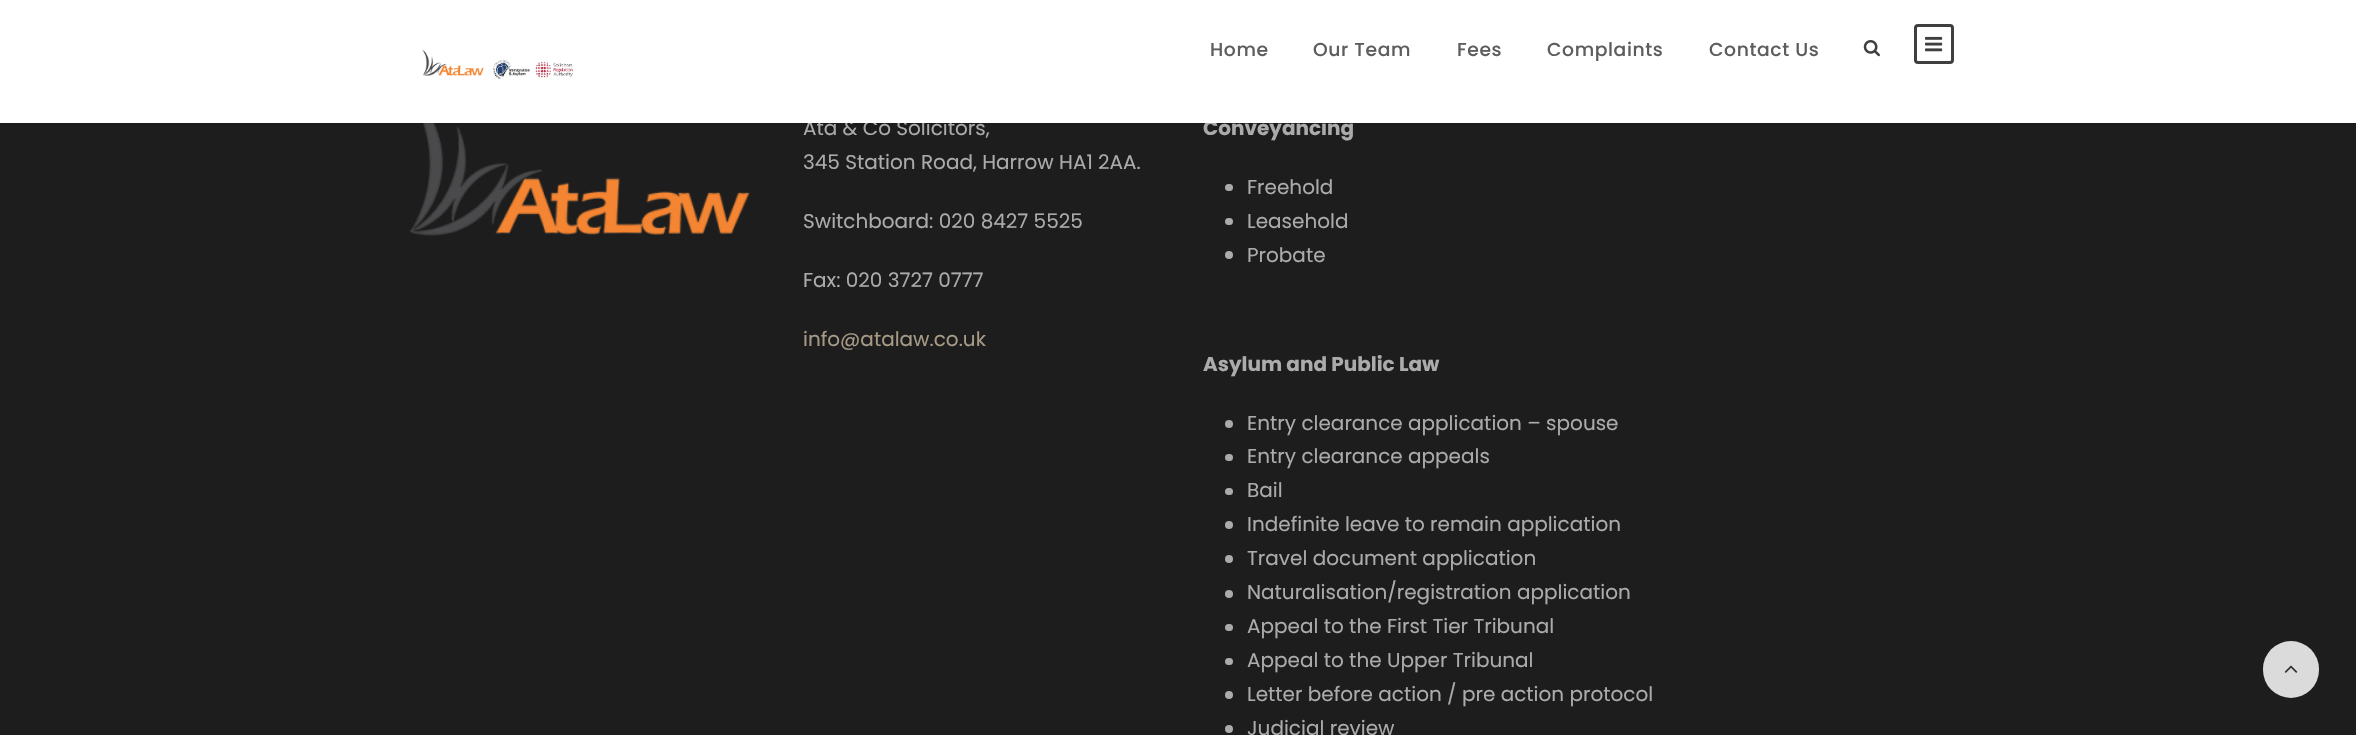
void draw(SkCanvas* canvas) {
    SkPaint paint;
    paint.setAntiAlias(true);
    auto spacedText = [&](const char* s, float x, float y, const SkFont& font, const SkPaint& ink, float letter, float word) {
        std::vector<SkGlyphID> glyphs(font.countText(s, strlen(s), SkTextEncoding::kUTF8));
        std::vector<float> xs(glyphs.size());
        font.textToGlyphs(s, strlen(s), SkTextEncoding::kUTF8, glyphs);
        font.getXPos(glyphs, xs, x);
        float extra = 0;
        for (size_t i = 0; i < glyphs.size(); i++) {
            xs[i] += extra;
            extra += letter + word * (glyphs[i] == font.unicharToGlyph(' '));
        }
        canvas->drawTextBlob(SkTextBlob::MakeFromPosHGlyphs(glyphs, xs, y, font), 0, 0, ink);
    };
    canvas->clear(0xFF1D1D1D);
    canvas->drawImageRect(SkImages::DeferredFromEncodedData(SkData::MakeFromFileName("img4.png")), SkRect::MakeXYWH(409, 123, 341, 113), SkSamplingOptions());
    paint.setColor(0x1A000000);
    paint.setMaskFilter(SkMaskFilter::MakeBlur(kNormal_SkBlurStyle, 1));
    canvas->drawRect(SkRect::MakeXYWH(0, 1, 2356, 123), paint);
    paint.setMaskFilter(nullptr);
    SkFont font1(fontMgr->matchFamilyStyle("Poppins", SkFontStyle::Normal()), 20);
    font1.setSubpixel(true);
    paint.setColor(0xFFABABAB);
    canvas->drawString("Ata & Co Solicitors,", 803, 135, font1, paint);
    SkFont font2(fontMgr->matchFamilyStyle("Poppins", SkFontStyle::Bold()), 20);
    font2.setSubpixel(true);
    canvas->drawString("Conveyancing", 1203, 135, font2, paint);
    paint.setColor(0xFFFFFFFF);
    canvas->drawRect(SkRect::MakeXYWH(0, 0, 2356, 123), paint);
    canvas->drawImageRect(SkImages::DeferredFromEncodedData(SkData::MakeFromFileName("img1.png")), SkRect::MakeXYWH(422, 49, 151, 30), SkSamplingOptions());
    SkFont font3(fontMgr->matchFamilyStyle("Poppins", SkFontStyle(500, SkFontStyle::kNormal_Width, SkFontStyle::kUpright_Slant)), 18.75f);
    font3.setSubpixel(true);
    paint.setColor(0xFF5D5D5D);
    spacedText("Home", 1210, 56, font3, paint, 0.6f, 0);
    spacedText("Our Team", 1313, 56, font3, paint, 0.6f, 0);
    spacedText("Fees", 1457, 56, font3, paint, 0.6f, 0);
    spacedText("Complaints", 1547, 56, font3, paint, 0.6f, 0);
    spacedText("Contact Us", 1709, 56, font3, paint, 0.6f, 0);
    canvas->drawImageRect(SkImages::DeferredFromEncodedData(SkData::MakeFromFileName("img2.png")), SkRect::MakeXYWH(1863, 40, 17, 17), SkSamplingOptions());
    paint.setStyle(SkPaint::kStroke_Style);
    paint.setStrokeWidth(3);
    paint.setColor(0xFF3F3F3F);
    canvas->drawRoundRect(SkRect::MakeXYWH(1915.5f, 25.5f, 37, 37), 2.5f, 2.5f, paint);
    canvas->drawImageRect(SkImages::DeferredFromEncodedData(SkData::MakeFromFileName("img3.png")), SkRect::MakeXYWH(1925, 36, 18, 16), SkSamplingOptions());
    paint.setStyle(SkPaint::kFill_Style);
    paint.setColor(0xFFABABAB);
    canvas->drawString("345 Station Road, Harrow HA1 2AA.", 803, 169, font1, paint);
    canvas->drawString("Switchboard: 020 8427 5525", 803, 228, font1, paint);
    canvas->drawString("Fax: 020 3727 0777", 803, 287, font1, paint);
    paint.setColor(0xFFA69A87);
    canvas->drawString("info@atalaw.co.uk", 803, 346, font1, paint);
    paint.setColor(0xFFABABAB);
    canvas->drawRoundRect(SkRect::MakeXYWH(1225, 184, 8, 7), 3.5f, 3.5f, paint);
    canvas->drawString("Freehold", 1247, 194, font1, paint);
    canvas->drawRoundRect(SkRect::MakeXYWH(1225, 218, 8, 7), 3.5f, 3.5f, paint);
    canvas->drawString("Leasehold", 1247, 228, font1, paint);
    canvas->drawCircle(1229, 255, 4, paint);
    canvas->drawString("Probate", 1247, 262, font1, paint);
    canvas->drawString("Asylum and Public Law", 1203, 371, font2, paint);
    canvas->drawCircle(1229, 424, 4, paint);
    canvas->drawString("Entry clearance application – spouse", 1247, 430, font1, paint);
    canvas->drawRoundRect(SkRect::MakeXYWH(1225, 454, 8, 7), 3.5f, 3.5f, paint);
    canvas->drawString("Entry clearance appeals", 1247, 463, font1, paint);
    canvas->drawRoundRect(SkRect::MakeXYWH(1225, 488, 8, 7), 3.5f, 3.5f, paint);
    canvas->drawString("Bail", 1247, 497, font1, paint);
    canvas->drawCircle(1229, 525, 4, paint);
    canvas->drawString("Indefinite leave to remain application", 1247, 531, font1, paint);
    canvas->drawCircle(1229, 559, 4, paint);
    canvas->drawString("Travel document application", 1247, 565, font1, paint);
    canvas->drawCircle(1229, 594, 4, paint);
    canvas->drawString("Naturalisation/registration application", 1247, 599, font1, paint);
    canvas->drawRoundRect(SkRect::MakeXYWH(1225, 624, 8, 7), 3.5f, 3.5f, paint);
    canvas->drawString("Appeal to the First Tier Tribunal", 1247, 633, font1, paint);
    canvas->drawRoundRect(SkRect::MakeXYWH(1225, 658, 8, 7), 3.5f, 3.5f, paint);
    canvas->drawString("Appeal to the Upper Tribunal", 1247, 667, font1, paint);
    canvas->drawCircle(1229, 695, 4, paint);
    canvas->drawString("Letter before action / pre action protocol", 1247, 701, font1, paint);
    canvas->drawCircle(1229, 729, 4, paint);
    canvas->drawString("Judicial review", 1247, 735, font1, paint);
    paint.setColor(0xFFDBDBDB);
    canvas->drawRoundRect(SkRect::MakeXYWH(2263, 641, 56, 57), 28, 28, paint);
    canvas->drawImageRect(SkImages::DeferredFromEncodedData(SkData::MakeFromFileName("img5.png")), SkRect::MakeXYWH(2284, 665, 14, 8), SkSamplingOptions());
}
